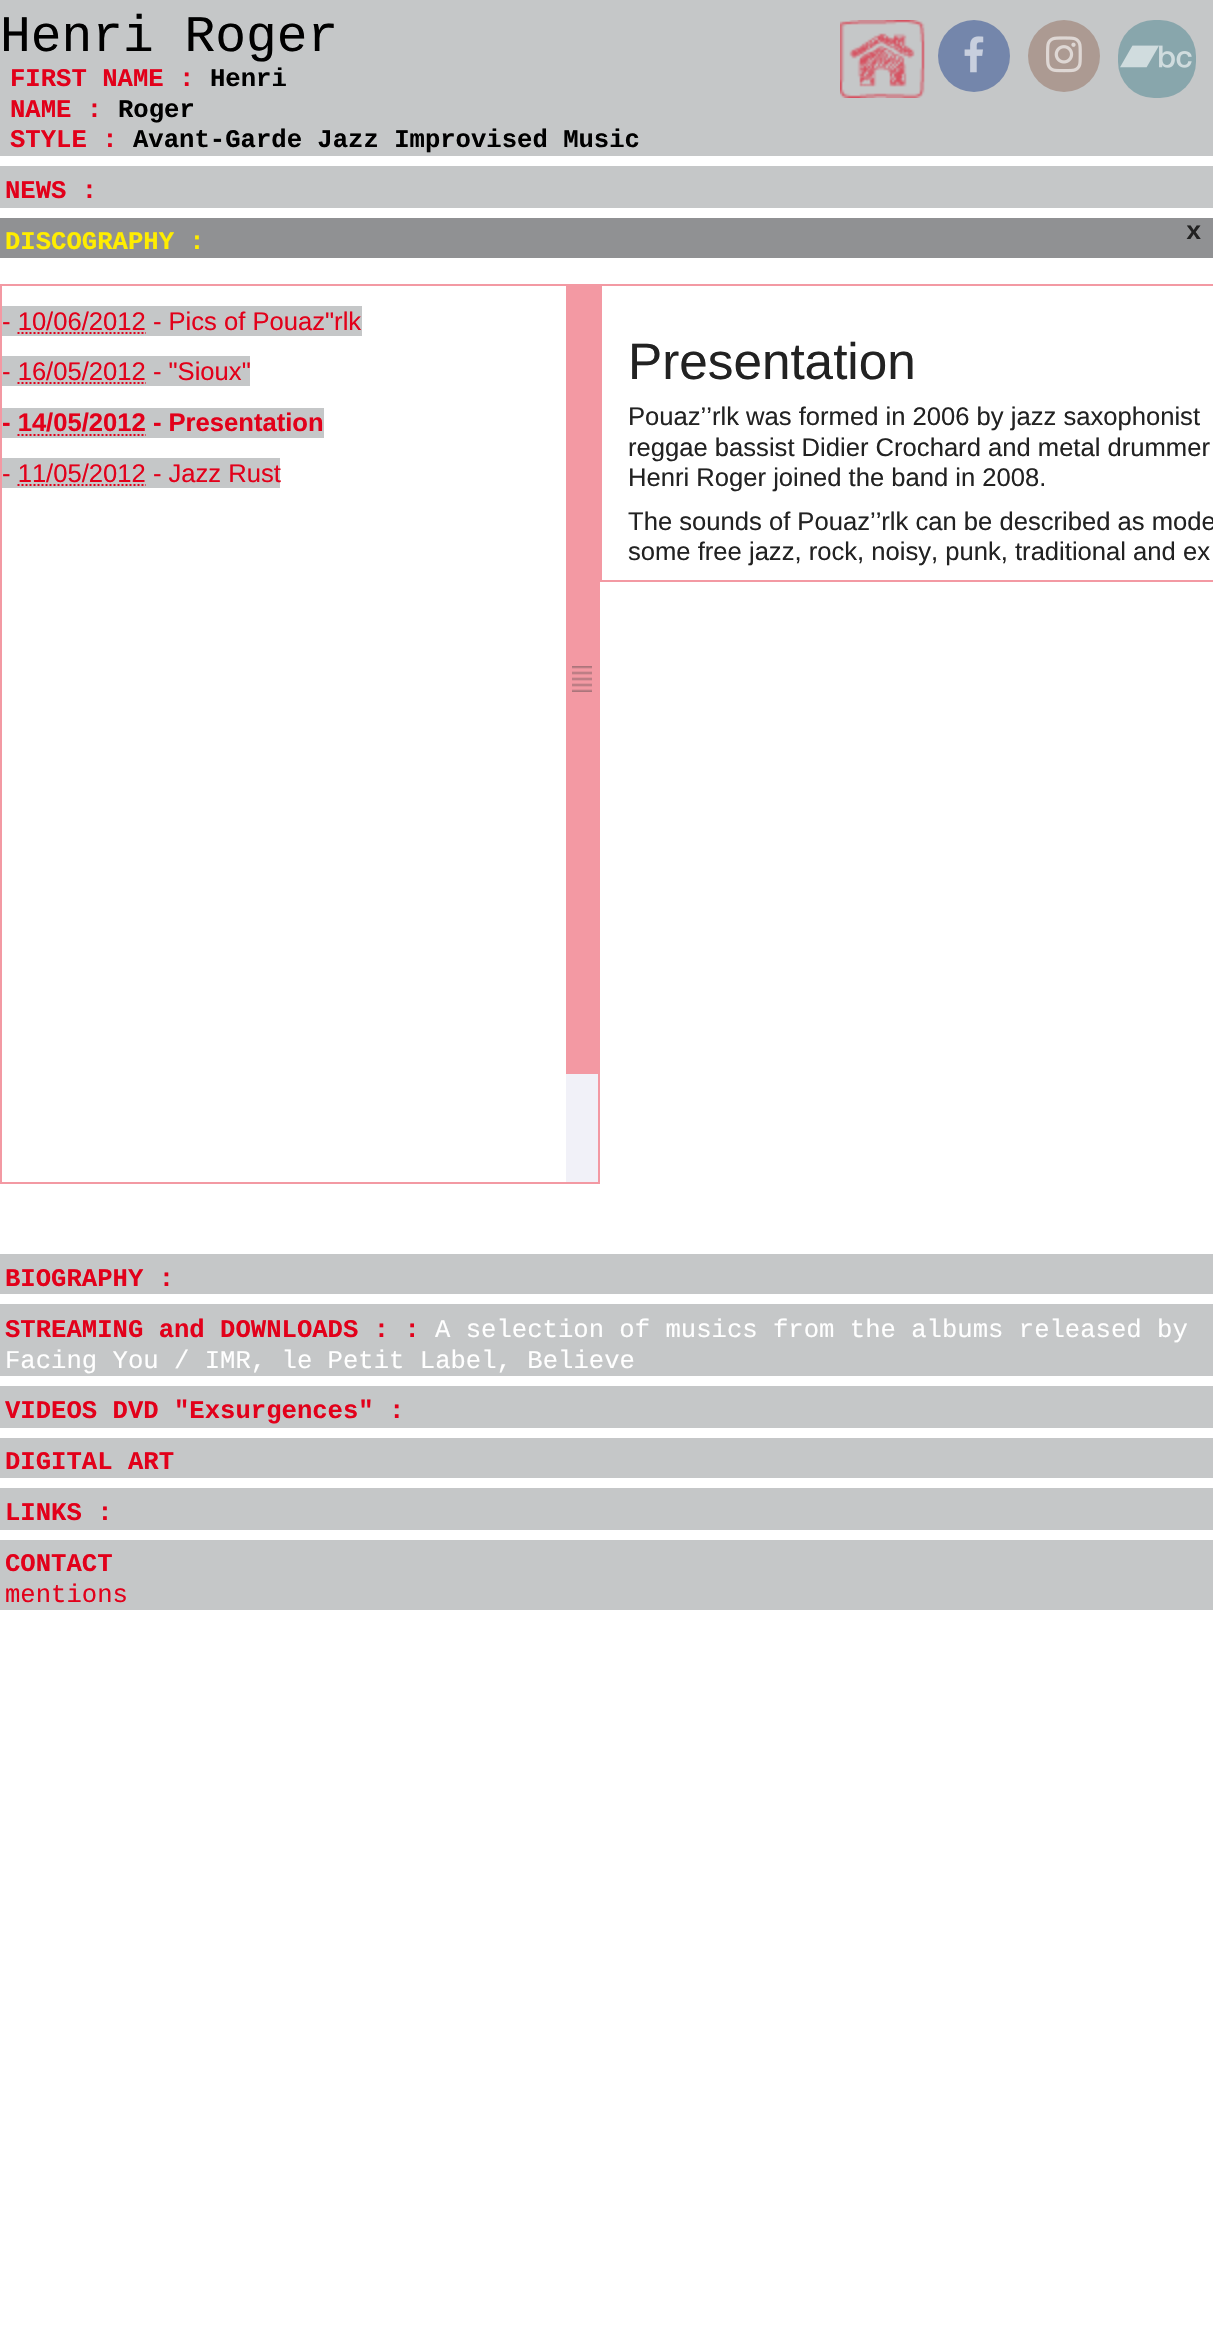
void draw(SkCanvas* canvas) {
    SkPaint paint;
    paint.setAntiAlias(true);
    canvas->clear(0xFFFFFFFF);
    paint.setColor(0xFFC5C7C8);
    canvas->drawRect(SkRect::MakeXYWH(0, 0, 1213, 156), paint);
    SkFont font1(fontMgr->matchFamilyStyle("Liberation Mono", SkFontStyle::Normal()), 51.25f);
    font1.setSubpixel(true);
    paint.setColor(0xFF000000);
    canvas->drawString("Henri Roger", 0, 51, font1, paint);
    canvas->drawImageRect(SkImages::DeferredFromEncodedData(SkData::MakeFromFileName("img1.png")), SkRect::MakeXYWH(840, 20, 85, 78), SkSamplingOptions());
    paint.setColor(0xFF7486AB);
    canvas->drawCircle(974, 56, 36, paint);
    canvas->drawImageRect(SkImages::DeferredFromEncodedData(SkData::MakeFromFileName("img2.png")), SkRect::MakeXYWH(964, 36, 20, 37), SkSamplingOptions());
    paint.setColor(0xFFAC9A92);
    canvas->drawCircle(1064, 56, 36, paint);
    canvas->drawImageRect(SkImages::DeferredFromEncodedData(SkData::MakeFromFileName("img3.png")), SkRect::MakeXYWH(1046, 36, 36, 37), SkSamplingOptions());
    paint.setColor(0xFF88A6AC);
    canvas->drawRoundRect(SkRect::MakeXYWH(1118, 20, 78, 78), 36, 36, paint);
    canvas->drawImageRect(SkImages::DeferredFromEncodedData(SkData::MakeFromFileName("img4.png")), SkRect::MakeXYWH(1120, 45, 72, 23), SkSamplingOptions());
    SkFont font2(fontMgr->matchFamilyStyle("Liberation Mono", SkFontStyle::Bold()), 25.6f);
    font2.setSubpixel(true);
    paint.setColor(0xFFE2001A);
    canvas->drawString("FIRST NAME :", 10, 86, font2, paint);
    paint.setColor(0xFF000000);
    canvas->drawString("Henri", 210, 86, font2, paint);
    paint.setColor(0xFFE2001A);
    canvas->drawString("NAME :", 10, 117, font2, paint);
    paint.setColor(0xFF000000);
    canvas->drawString("Roger", 118, 117, font2, paint);
    paint.setColor(0xFFE2001A);
    canvas->drawString("STYLE :", 10, 147, font2, paint);
    paint.setColor(0xFF000000);
    canvas->drawString("Avant-Garde Jazz Improvised Music", 133, 147, font2, paint);
    paint.setColor(0xFFC5C7C8);
    canvas->drawRect(SkRect::MakeXYWH(0, 166, 1213, 42), paint);
    paint.setColor(0xFFE2001A);
    canvas->drawString("NEWS :", 5, 198, font2, paint);
    paint.setColor(0xFF909193);
    canvas->drawRect(SkRect::MakeXYWH(0, 218, 1213, 40), paint);
    paint.setColor(0xFFFFED00);
    canvas->drawString("DISCOGRAPHY :", 5, 249, font2, paint);
    paint.setColor(0xFF222222);
    canvas->drawString("x", 1186, 239, font2, paint);
    paint.setStyle(SkPaint::kStroke_Style);
    paint.setStrokeWidth(2);
    paint.setColor(0xFFF399A3);
    canvas->drawRect(SkRect::MakeXYWH(1, 285, 598, 898), paint);
    paint.setStyle(SkPaint::kFill_Style);
    paint.setColor(0xFFC5C7C8);
    canvas->drawRect(SkRect::MakeXYWH(2, 306, 360, 30), paint);
    SkFont font3(fontMgr->matchFamilyStyle("Liberation Sans", SkFontStyle::Normal()), 25.6f);
    font3.setSubpixel(true);
    paint.setColor(0xFFE2001A);
    canvas->drawString("- 10/06/2012 - Pics of Pouaz\"rlk", 2, 330, font3, paint);
    paint.setStyle(SkPaint::kStroke_Style);
    paint.setPathEffect(SkDashPathEffect::Make({{2, 2}}, 0));
    canvas->drawPath(SkPathBuilder().moveTo(17.5f, 333).lineTo(146, 333).detach(), paint);
    paint.setPathEffect(nullptr);
    paint.setStyle(SkPaint::kFill_Style);
    paint.setColor(0xFFC5C7C8);
    canvas->drawRect(SkRect::MakeXYWH(2, 356, 248, 30), paint);
    paint.setColor(0xFFE2001A);
    canvas->drawString("- 16/05/2012 - \"Sioux\"", 2, 380, font3, paint);
    paint.setStyle(SkPaint::kStroke_Style);
    paint.setPathEffect(SkDashPathEffect::Make({{2, 2}}, 0));
    canvas->drawPath(SkPathBuilder().moveTo(17.5f, 383).lineTo(146, 383).detach(), paint);
    paint.setPathEffect(nullptr);
    paint.setStyle(SkPaint::kFill_Style);
    paint.setColor(0xFFC5C7C8);
    canvas->drawRect(SkRect::MakeXYWH(2, 408, 322, 30), paint);
    SkFont font4(fontMgr->matchFamilyStyle("Liberation Sans", SkFontStyle::Bold()), 25.6f);
    font4.setSubpixel(true);
    paint.setColor(0xFFE2001A);
    canvas->drawString("- 14/05/2012 - Presentation", 2, 431, font4, paint);
    paint.setStyle(SkPaint::kStroke_Style);
    paint.setPathEffect(SkDashPathEffect::Make({{2, 2}}, 0));
    canvas->drawPath(SkPathBuilder().moveTo(17.5f, 435).lineTo(146, 435).detach(), paint);
    paint.setPathEffect(nullptr);
    paint.setStyle(SkPaint::kFill_Style);
    paint.setColor(0xFFC5C7C8);
    canvas->drawRect(SkRect::MakeXYWH(2, 458, 278, 30), paint);
    paint.setColor(0xFFE2001A);
    canvas->drawString("- 11/05/2012 - Jazz Rust", 2, 482, font3, paint);
    paint.setStyle(SkPaint::kStroke_Style);
    paint.setPathEffect(SkDashPathEffect::Make({{2, 2}}, 0));
    canvas->drawPath(SkPathBuilder().moveTo(17.5f, 485).lineTo(146, 485).detach(), paint);
    paint.setPathEffect(nullptr);
    paint.setStyle(SkPaint::kFill_Style);
    paint.setColor(0xFFF1F1F8);
    canvas->drawRect(SkRect::MakeXYWH(566, 1074, 32, 108), paint);
    paint.setColor(0xFFF399A3);
    canvas->drawRect(SkRect::MakeXYWH(566, 286, 32, 788), paint);
    canvas->drawImageRect(SkImages::DeferredFromEncodedData(SkData::MakeFromFileName("img5.png")), SkRect::MakeXYWH(572, 666, 20, 26), SkSamplingOptions());
    paint.setStyle(SkPaint::kStroke_Style);
    canvas->drawRect(SkRect::MakeXYWH(601, 285, 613, 296), paint);
    SkFont font5(fontMgr->matchFamilyStyle("Liberation Sans", SkFontStyle::Normal()), 51.25f);
    font5.setSubpixel(true);
    paint.setStyle(SkPaint::kFill_Style);
    paint.setColor(0xFF222222);
    canvas->drawString("Presentation", 628, 379, font5, paint);
    canvas->drawString("Pouaz’’rlk was formed in 2006 by jazz saxophonist", 628, 425, font3, paint);
    canvas->drawString("reggae bassist Didier Crochard and metal drummer", 628, 456, font3, paint);
    canvas->drawString("Henri Roger joined the band in 2008.", 628, 486, font3, paint);
    canvas->drawString("The sounds of Pouaz’’rlk can be described as mode", 628, 530, font3, paint);
    canvas->drawString("some free jazz, rock, noisy, punk, traditional and ex", 628, 560, font3, paint);
    paint.setColor(0xFFC5C7C8);
    canvas->drawRect(SkRect::MakeXYWH(0, 1254, 1213, 40), paint);
    paint.setColor(0xFFE2001A);
    canvas->drawString("BIOGRAPHY :", 5, 1286, font2, paint);
    paint.setColor(0xFFC5C7C8);
    canvas->drawRect(SkRect::MakeXYWH(0, 1304, 1213, 72), paint);
    paint.setColor(0xFFE2001A);
    canvas->drawString("STREAMING and DOWNLOADS : :", 5, 1337, font2, paint);
    SkFont font6(fontMgr->matchFamilyStyle("Liberation Mono", SkFontStyle::Normal()), 25.6f);
    font6.setSubpixel(true);
    paint.setColor(0xFFFFFFFF);
    canvas->drawString("A selection of musics from the albums released by", 435, 1337, font6, paint);
    canvas->drawString("Facing You / IMR, le Petit Label, Believe", 5, 1368, font6, paint);
    paint.setColor(0xFFC5C7C8);
    canvas->drawRect(SkRect::MakeXYWH(0, 1386, 1213, 42), paint);
    paint.setColor(0xFFE2001A);
    canvas->drawString("VIDEOS DVD \"Exsurgences\" :", 5, 1418, font2, paint);
    paint.setColor(0xFFC5C7C8);
    canvas->drawRect(SkRect::MakeXYWH(0, 1438, 1213, 40), paint);
    paint.setColor(0xFFE2001A);
    canvas->drawString("DIGITAL ART", 5, 1469, font2, paint);
    paint.setColor(0xFFC5C7C8);
    canvas->drawRect(SkRect::MakeXYWH(0, 1488, 1213, 42), paint);
    paint.setColor(0xFFE2001A);
    canvas->drawString("LINKS :", 5, 1520, font2, paint);
    paint.setColor(0xFFC5C7C8);
    canvas->drawRect(SkRect::MakeXYWH(0, 1540, 1213, 70), paint);
    paint.setColor(0xFFE2001A);
    canvas->drawString("CONTACT", 5, 1571, font2, paint);
    canvas->drawString("mentions", 5, 1602, font6, paint);
}
